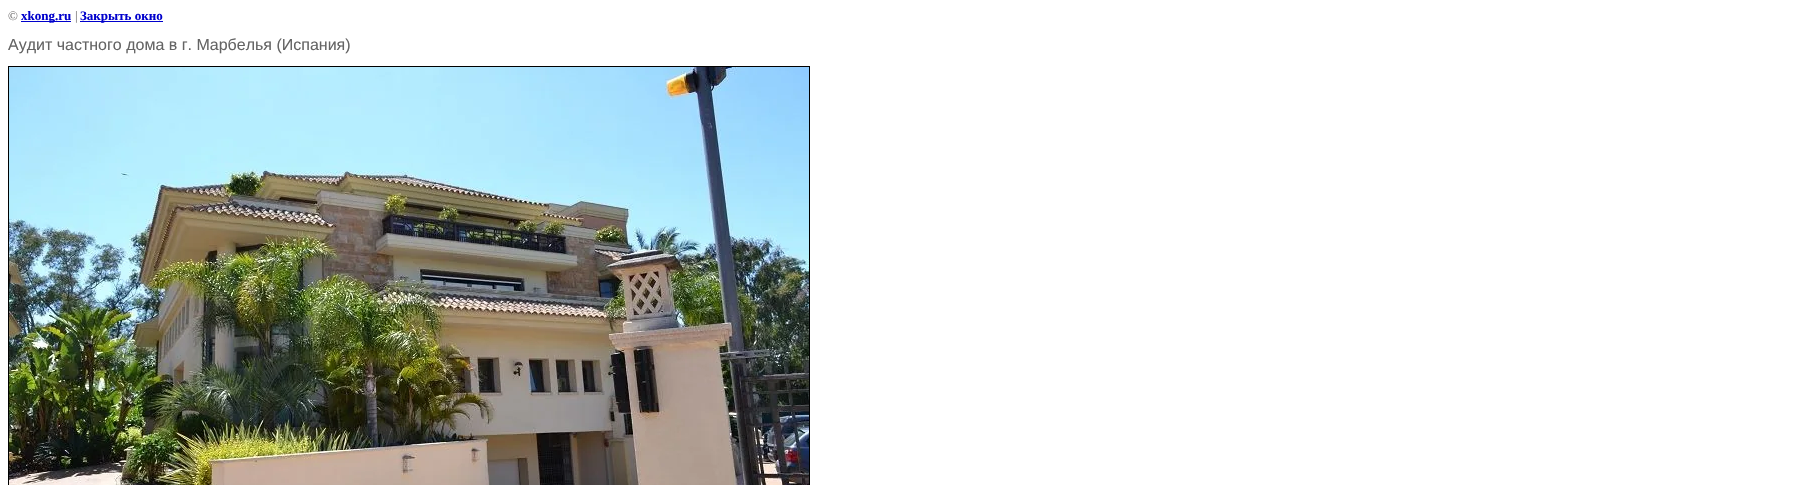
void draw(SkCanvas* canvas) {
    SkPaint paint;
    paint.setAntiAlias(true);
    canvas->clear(0xFFFFFFFF);
    SkFont font1(fontMgr->matchFamilyStyle("Liberation Serif", SkFontStyle::Normal()), 13);
    font1.setSubpixel(true);
    paint.setColor(0xFF767474);
    canvas->drawString("©", 8, 20, font1, paint);
    paint.setColor(0xFF0000CC);
    canvas->drawRect(SkRect::MakeXYWH(21, 21, 50, 1), paint);
    SkFont font2(fontMgr->matchFamilyStyle("Liberation Serif", SkFontStyle::Bold()), 13);
    font2.setSubpixel(true);
    canvas->drawString("xkong.ru", 21, 20, font2, paint);
    paint.setColor(0xFF767474);
    canvas->drawString("|", 75, 20, font1, paint);
    paint.setColor(0xFF0000CC);
    canvas->drawRect(SkRect::MakeXYWH(80, 21, 83, 1), paint);
    canvas->drawString("Закрыть окно", 80, 20, font2, paint);
    SkFont font3(fontMgr->matchFamilyStyle("Liberation Sans", SkFontStyle::Normal()), 16);
    font3.setSubpixel(true);
    paint.setColor(0xFF646464);
    canvas->drawString("Аудит частного дома в г. Марбелья (Испания)", 8, 50, font3, paint);
    paint.setStyle(SkPaint::kStroke_Style);
    paint.setStrokeWidth(1);
    paint.setColor(0xFF000000);
    canvas->drawRect(SkRect::MakeXYWH(8.5f, 66.5f, 801, 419), paint);
    canvas->drawImageRect(SkImages::DeferredFromEncodedData(SkData::MakeFromFileName("img1.png")), SkRect::MakeXYWH(9, 67, 800, 418), SkSamplingOptions());
}
